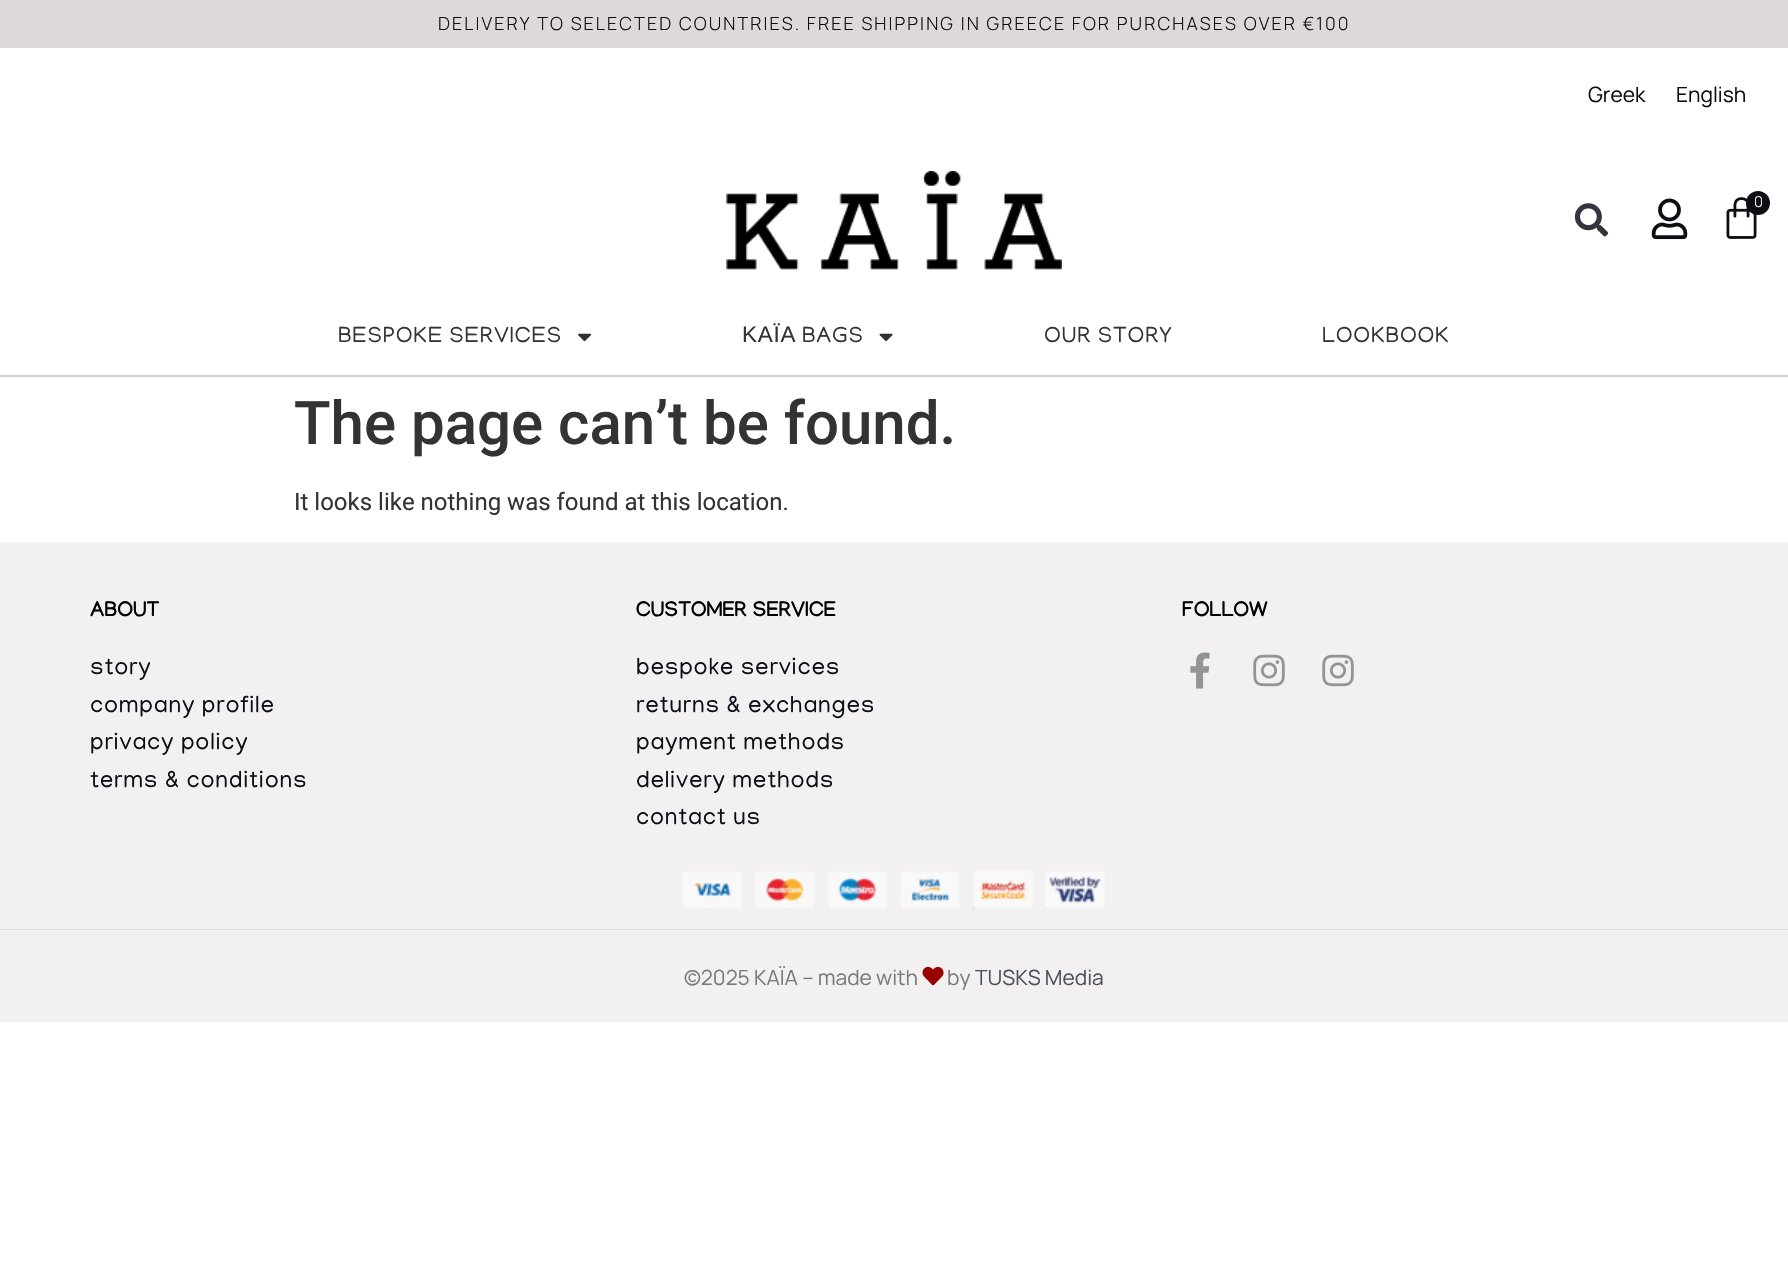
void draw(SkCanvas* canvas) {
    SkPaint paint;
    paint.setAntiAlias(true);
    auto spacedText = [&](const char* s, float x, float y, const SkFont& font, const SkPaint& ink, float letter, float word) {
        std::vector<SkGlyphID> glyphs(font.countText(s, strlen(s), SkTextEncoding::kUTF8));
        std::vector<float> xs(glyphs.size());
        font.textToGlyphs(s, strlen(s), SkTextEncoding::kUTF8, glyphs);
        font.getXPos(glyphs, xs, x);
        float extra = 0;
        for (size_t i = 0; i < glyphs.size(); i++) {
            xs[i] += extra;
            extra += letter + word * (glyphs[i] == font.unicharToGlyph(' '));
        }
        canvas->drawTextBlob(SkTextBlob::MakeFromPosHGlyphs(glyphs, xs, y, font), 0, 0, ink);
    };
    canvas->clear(0xFFFFFFFF);
    paint.setColor(0xFFDFD8DA);
    canvas->drawRect(SkRect::MakeXYWH(0, 0, 1788, 48), paint);
    SkFont font1(fontMgr->matchFamilyStyle("Manrope", SkFontStyle(300, SkFontStyle::kNormal_Width, SkFontStyle::kUpright_Slant)), 18);
    font1.setSubpixel(true);
    paint.setColor(0xFF0D0E14);
    spacedText("DELIVERY TO SELECTED COUNTRIES. FREE SHIPPING IN GREECE FOR PURCHASES OVER €100", 438, 30, font1, paint, 2.1f, 0);
    SkFont font2(fontMgr->matchFamilyStyle("Manrope", SkFontStyle::Normal()), 21);
    font2.setSubpixel(true);
    canvas->drawString("Greek", 1588, 102, font2, paint);
    canvas->drawString("English", 1676, 102, font2, paint);
    canvas->drawImageRect(SkImages::DeferredFromEncodedData(SkData::MakeFromFileName("img1.png")), SkRect::MakeXYWH(726, 171, 336, 99), SkSamplingOptions());
    canvas->drawImageRect(SkImages::DeferredFromEncodedData(SkData::MakeFromFileName("img2.png")), SkRect::MakeXYWH(1574, 203, 35, 34), SkSamplingOptions());
    canvas->drawImageRect(SkImages::DeferredFromEncodedData(SkData::MakeFromFileName("img3.png")), SkRect::MakeXYWH(1651, 198, 37, 42), SkSamplingOptions());
    canvas->drawImageRect(SkImages::DeferredFromEncodedData(SkData::MakeFromFileName("img4.png")), SkRect::MakeXYWH(1726, 197, 31, 42), SkSamplingOptions());
    canvas->drawCircle(1758, 203, 12, paint);
    SkFont font3(fontMgr->matchFamilyStyle("Manrope", SkFontStyle(300, SkFontStyle::kNormal_Width, SkFontStyle::kUpright_Slant)), 15);
    font3.setSubpixel(true);
    paint.setColor(0xFFFFFFFF);
    canvas->drawString("0", 1754, 207, font3, paint);
    paint.setColor(0xFFDBCDCD);
    canvas->drawRect(SkRect::MakeXYWH(0, 375, 1788, 2), paint);
    SkFont font4(fontMgr->matchFamilyStyle("Manjari", SkFontStyle::Normal()), 22.5f);
    font4.setSubpixel(true);
    paint.setColor(0xFF333333);
    spacedText("BESPOKE SERVICES", 338, 342, font4, paint, 0.75f, 0);
    canvas->drawImageRect(SkImages::DeferredFromEncodedData(SkData::MakeFromFileName("img5.png")), SkRect::MakeXYWH(578, 333, 13, 9), SkSamplingOptions());
    SkFont font5(fontMgr->matchFamilyStyle("Liberation Sans", SkFontStyle::Normal()), 22.5f);
    font5.setSubpixel(true);
    spacedText("ΚΑΪΑ", 742, 342, font5, paint, 0.75f, 0);
    spacedText("BAGS", 802, 342, font4, paint, 0.75f, 0);
    canvas->drawImageRect(SkImages::DeferredFromEncodedData(SkData::MakeFromFileName("img6.png")), SkRect::MakeXYWH(879, 333, 14, 9), SkSamplingOptions());
    spacedText("OUR STORY", 1044, 342, font4, paint, 0.75f, 0);
    spacedText("LOOKBOOK", 1322, 342, font4, paint, 0.75f, 0);
    SkFont font6(fontMgr->matchFamilyStyle("Roboto", SkFontStyle(500, SkFontStyle::kNormal_Width, SkFontStyle::kUpright_Slant)), 60);
    font6.setSubpixel(true);
    canvas->drawString("The page can’t be found.", 294, 444, font6, paint);
    SkFont font7(fontMgr->matchFamilyStyle("Roboto", SkFontStyle::Normal()), 24);
    font7.setSubpixel(true);
    canvas->drawString("It looks like nothing was found at this location.", 294, 510, font7, paint);
    paint.setColor(0xFFF3F0F1);
    canvas->drawRect(SkRect::MakeXYWH(0, 542, 1788, 387), paint);
    SkFont font8(fontMgr->matchFamilyStyle("Manjari", SkFontStyle::Bold()), 21);
    font8.setSubpixel(true);
    paint.setColor(0xFF000000);
    canvas->drawString("ABOUT", 90, 616, font8, paint);
    SkFont font9(fontMgr->matchFamilyStyle("Manjari", SkFontStyle::Normal()), 24);
    font9.setSubpixel(true);
    paint.setColor(0xFF0D0E14);
    spacedText("story", 90, 674, font9, paint, 0.75f, 0);
    spacedText("company profile", 90, 712, font9, paint, 0.75f, 0);
    spacedText("privacy policy", 90, 749, font9, paint, 0.75f, 0);
    spacedText("terms & conditions", 90, 787, font9, paint, 0.75f, 0);
    paint.setColor(0xFF000000);
    canvas->drawString("CUSTOMER SERVICE", 636, 616, font8, paint);
    paint.setColor(0xFF0D0E14);
    spacedText("bespoke services", 636, 674, font9, paint, 0.75f, 0);
    spacedText("returns & exchanges", 636, 712, font9, paint, 0.75f, 0);
    spacedText("payment methods", 636, 749, font9, paint, 0.75f, 0);
    spacedText("delivery methods", 636, 787, font9, paint, 0.75f, 0);
    spacedText("contact us", 636, 824, font9, paint, 0.75f, 0);
    paint.setColor(0xFF000000);
    canvas->drawString("FOLLOW", 1182, 616, font8, paint);
    canvas->drawImageRect(SkImages::DeferredFromEncodedData(SkData::MakeFromFileName("img7.png")), SkRect::MakeXYWH(1190, 652, 20, 37), SkSamplingOptions());
    canvas->drawImageRect(SkImages::DeferredFromEncodedData(SkData::MakeFromFileName("img8.png")), SkRect::MakeXYWH(1253, 654, 32, 33), SkSamplingOptions());
    canvas->drawImageRect(SkImages::DeferredFromEncodedData(SkData::MakeFromFileName("img8.png")), SkRect::MakeXYWH(1322, 654, 32, 33), SkSamplingOptions());
    paint.setColor(0xFFDFDFE0);
    canvas->drawRect(SkRect::MakeXYWH(0, 929, 1788, 1), paint);
    canvas->drawImageRect(SkImages::DeferredFromEncodedData(SkData::MakeFromFileName("img9.png")), SkRect::MakeXYWH(682, 871, 423, 38), SkSamplingOptions());
    paint.setColor(0xFFF3F0F1);
    canvas->drawRect(SkRect::MakeXYWH(0, 930, 1788, 92), paint);
    paint.setColor(0xFF7A7A7A);
    canvas->drawString("©2025 KAΪA – made with", 684, 985, font2, paint);
    canvas->drawImageRect(SkImages::DeferredFromEncodedData(SkData::MakeFromFileName("img10.png")), SkRect::MakeXYWH(922, 966, 22, 20), SkSamplingOptions());
    canvas->drawString("by", 947, 985, font2, paint);
    paint.setColor(0xFF4D5057);
    canvas->drawString("TUSKS Media", 975, 985, font2, paint);
}
